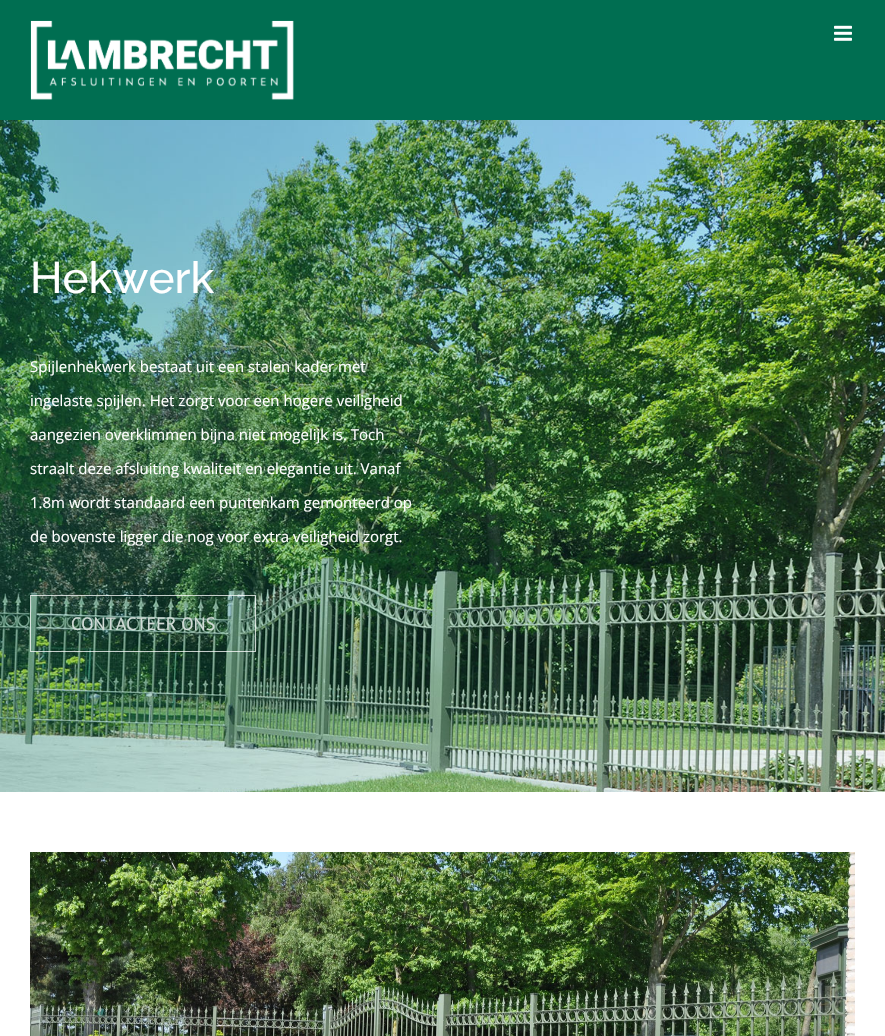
void draw(SkCanvas* canvas) {
    SkPaint paint;
    paint.setAntiAlias(true);
    canvas->clear(0xFFFFFFFF);
    paint.setColor(0xFF006E51);
    canvas->drawRect(SkRect::MakeXYWH(0, 0, 885, 120), paint);
    canvas->drawImageRect(SkImages::DeferredFromEncodedData(SkData::MakeFromFileName("img1.png")), SkRect::MakeXYWH(30, 20, 264, 80), SkSamplingOptions());
    canvas->drawImageRect(SkImages::DeferredFromEncodedData(SkData::MakeFromFileName("img2.png")), SkRect::MakeXYWH(834, 25, 18, 16), SkSamplingOptions());
    canvas->drawImageRect(SkImages::DeferredFromEncodedData(SkData::MakeFromFileName("img3.png")), SkRect::MakeXYWH(0, 120, 885, 672), SkSamplingOptions());
    SkFont font1(fontMgr->matchFamilyStyle("Raleway", SkFontStyle(100, SkFontStyle::kNormal_Width, SkFontStyle::kUpright_Slant)), 44);
    font1.setSubpixel(true);
    paint.setColor(0xFFFFFFFF);
    canvas->drawString("Hekwerk", 30, 293, font1, paint);
    SkFont font2(fontMgr->matchFamilyStyle("Open Sans", SkFontStyle::Normal()), 15);
    font2.setSubpixel(true);
    canvas->drawString("Spijlenhekwerk bestaat uit een stalen kader met", 30, 372, font2, paint);
    canvas->drawString("ingelaste spijlen. Het zorgt voor een hogere veiligheid", 30, 406, font2, paint);
    canvas->drawString("aangezien overklimmen bijna niet mogelijk is. Toch", 30, 440, font2, paint);
    canvas->drawString("straalt deze afsluiting kwaliteit en elegantie uit. Vanaf", 30, 474, font2, paint);
    canvas->drawString("1.8m wordt standaard een puntenkam gemonteerd op", 30, 508, font2, paint);
    canvas->drawString("de bovenste ligger die nog voor extra veiligheid zorgt.", 30, 542, font2, paint);
    paint.setStyle(SkPaint::kStroke_Style);
    paint.setStrokeWidth(1);
    paint.setColor(0xBFFFFFFF);
    canvas->drawRect(SkRect::MakeXYWH(30.5f, 595.5f, 225, 56), paint);
    SkFont font3(fontMgr->matchFamilyStyle("PT Sans", SkFontStyle::Normal()), 18);
    font3.setSubpixel(true);
    paint.setStyle(SkPaint::kFill_Style);
    paint.setColor(0xFFD1DBD7);
    canvas->drawString("CONTACTEER ONS", 71, 630, font3, paint);
    canvas->drawImageRect(SkImages::DeferredFromEncodedData(SkData::MakeFromFileName("img4.png")), SkRect::MakeXYWH(30, 852, 825, 184), SkSamplingOptions());
}
